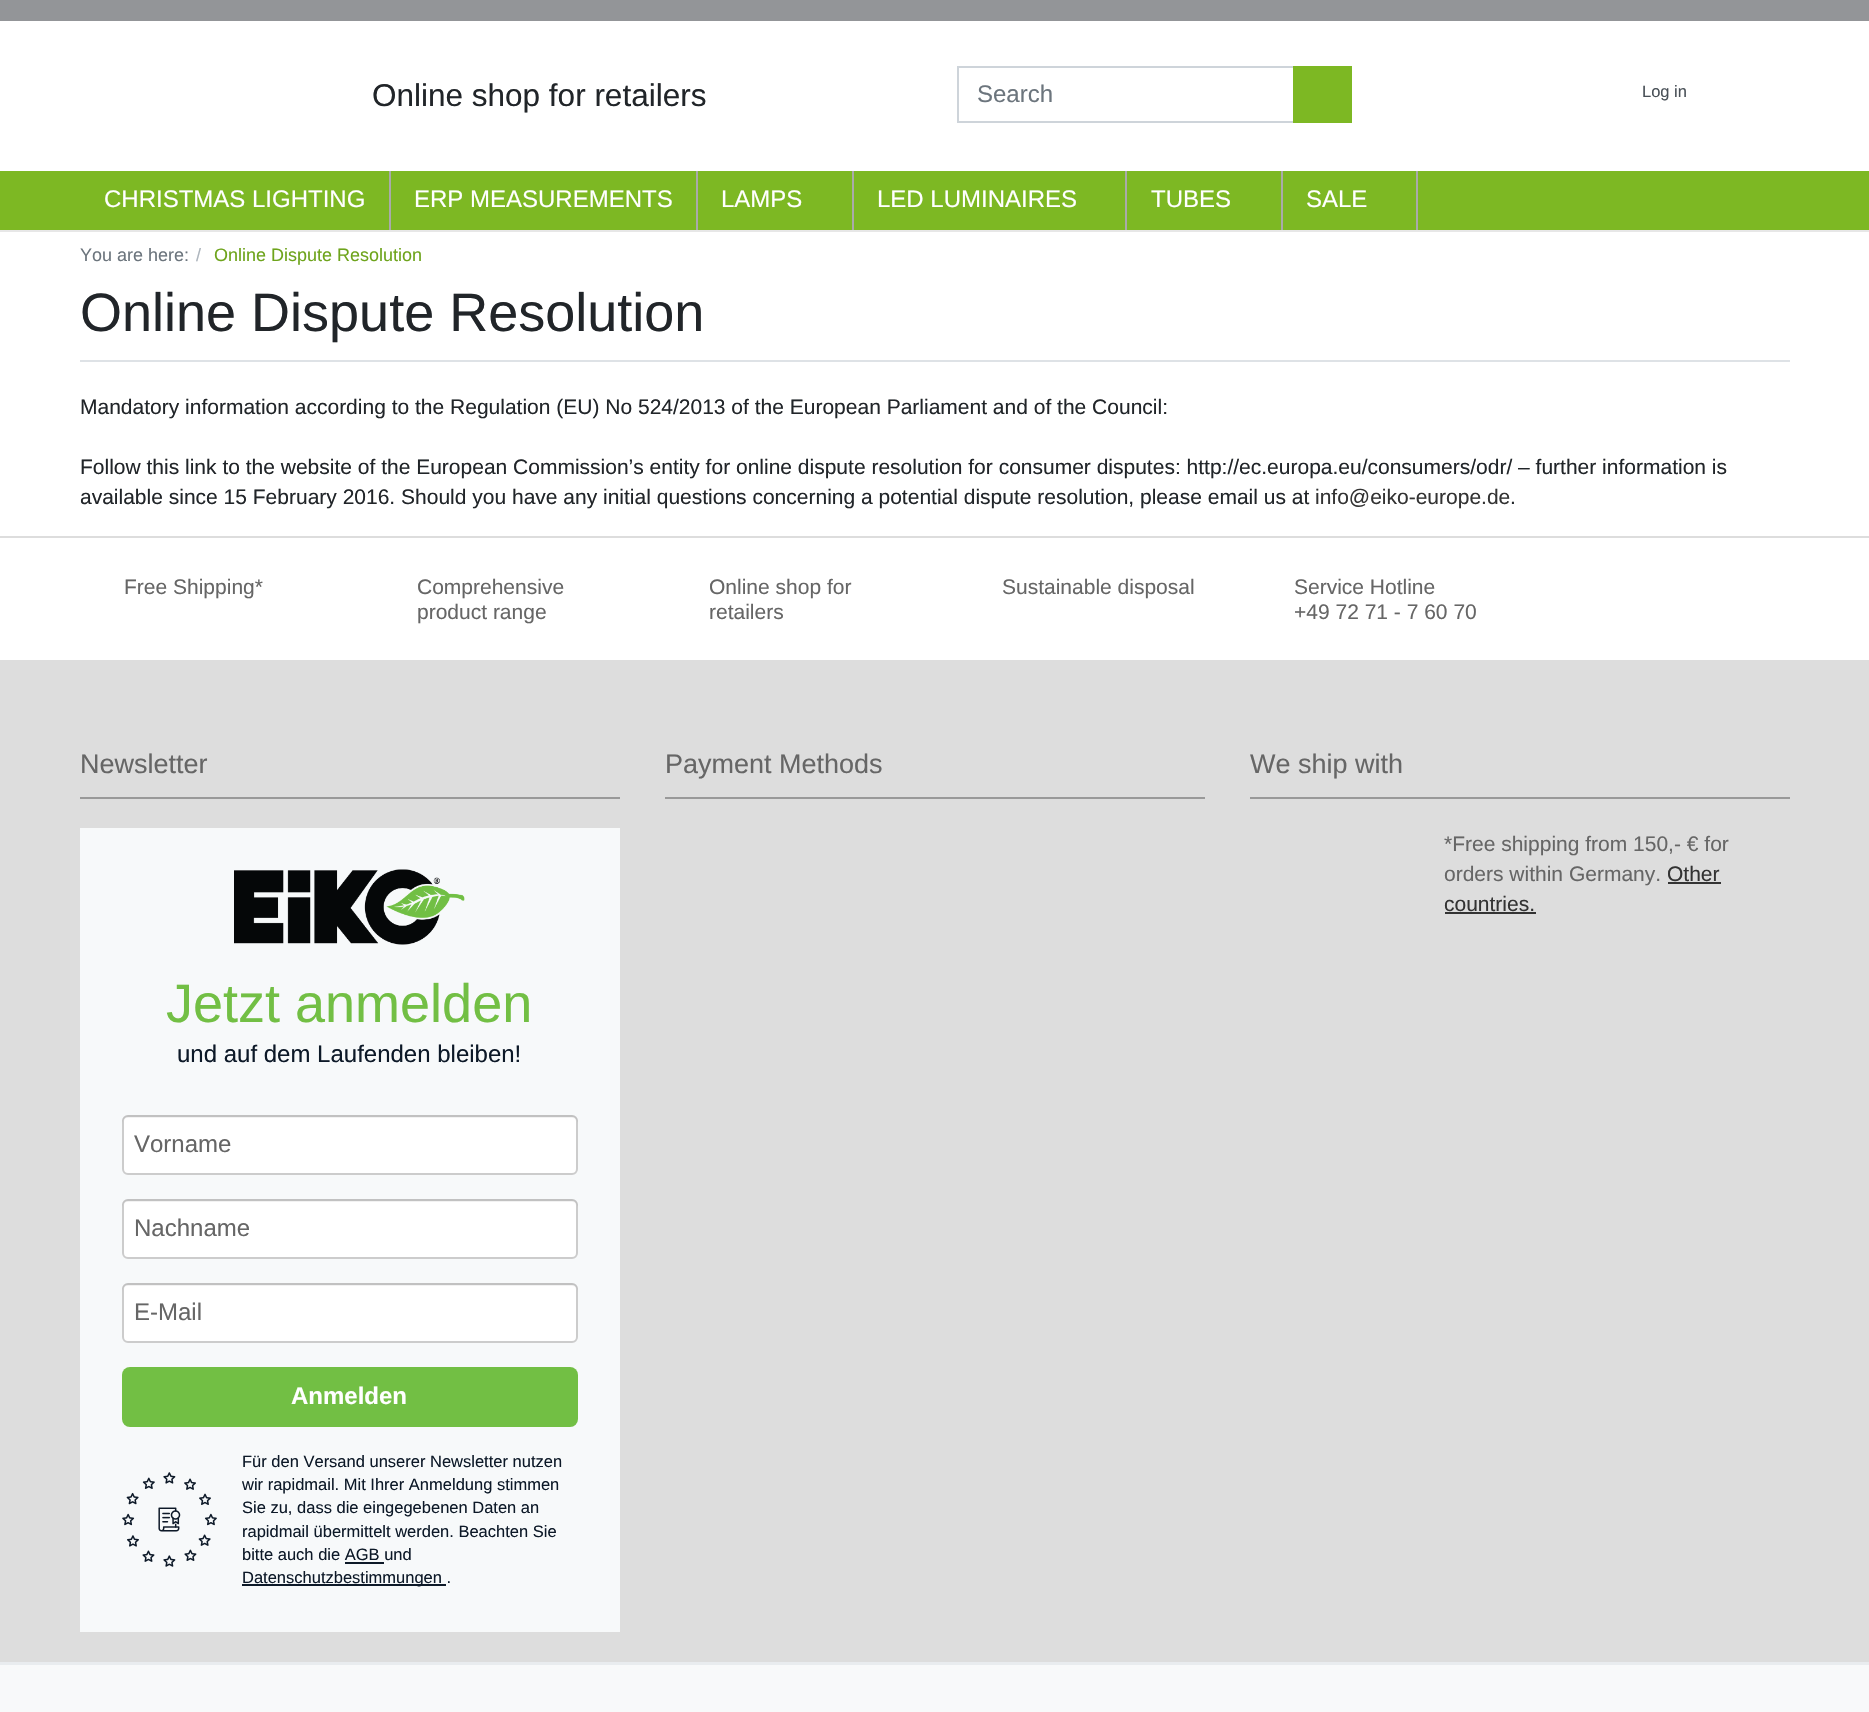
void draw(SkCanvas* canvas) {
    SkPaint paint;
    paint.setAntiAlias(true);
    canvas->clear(0xFFFFFFFF);
    paint.setColor(0xFF939598);
    canvas->drawRect(SkRect::MakeXYWH(0, 0, 1869, 21), paint);
    SkFont font1(fontMgr->matchFamilyStyle("Liberation Sans", SkFontStyle::Normal()), 31.5f);
    font1.setSubpixel(true);
    paint.setColor(0xFF212529);
    canvas->drawString("Online shop for retailers", 372, 106, font1, paint);
    paint.setStyle(SkPaint::kStroke_Style);
    paint.setStrokeWidth(2);
    paint.setColor(0xFFCED4DA);
    canvas->drawRect(SkRect::MakeXYWH(958, 67, 336, 55), paint);
    SkFont font2(fontMgr->matchFamilyStyle("Liberation Sans", SkFontStyle::Normal()), 24);
    font2.setSubpixel(true);
    paint.setStyle(SkPaint::kFill_Style);
    paint.setColor(0xFF6C757D);
    canvas->drawString("Search", 977, 102, font2, paint);
    paint.setColor(0xFF7DB823);
    canvas->drawRect(SkRect::MakeXYWH(1293, 66, 59, 57), paint);
    SkFont font3(fontMgr->matchFamilyStyle("Liberation Sans", SkFontStyle::Normal()), 16.5f);
    font3.setSubpixel(true);
    paint.setColor(0xFF495057);
    canvas->drawString("Log in", 1642, 97, font3, paint);
    paint.setColor(0xFF7DB823);
    canvas->drawRect(SkRect::MakeXYWH(0, 171, 1869, 59), paint);
    paint.setColor(0xFFE7E7E7);
    canvas->drawRect(SkRect::MakeXYWH(0, 230, 1869, 2), paint);
    paint.setColor(0xFFAAAAAA);
    canvas->drawRect(SkRect::MakeXYWH(389, 171, 2, 59), paint);
    paint.setColor(0xFFFFFFFF);
    canvas->drawString("CHRISTMAS LIGHTING", 104, 207, font2, paint);
    paint.setColor(0xFFAAAAAA);
    canvas->drawRect(SkRect::MakeXYWH(696, 171, 2, 59), paint);
    paint.setColor(0xFFFFFFFF);
    canvas->drawString("ERP MEASUREMENTS", 414, 207, font2, paint);
    paint.setColor(0xFFAAAAAA);
    canvas->drawRect(SkRect::MakeXYWH(852, 171, 2, 59), paint);
    paint.setColor(0xFFFFFFFF);
    canvas->drawString("LAMPS", 721, 207, font2, paint);
    paint.setColor(0xFFAAAAAA);
    canvas->drawRect(SkRect::MakeXYWH(1125, 171, 2, 59), paint);
    paint.setColor(0xFFFFFFFF);
    canvas->drawString("LED LUMINAIRES", 877, 207, font2, paint);
    paint.setColor(0xFFAAAAAA);
    canvas->drawRect(SkRect::MakeXYWH(1281, 171, 2, 59), paint);
    paint.setColor(0xFFFFFFFF);
    canvas->drawString("TUBES", 1151, 207, font2, paint);
    paint.setColor(0xFFAAAAAA);
    canvas->drawRect(SkRect::MakeXYWH(1416, 171, 2, 59), paint);
    paint.setColor(0xFFFFFFFF);
    canvas->drawString("SALE", 1306, 207, font2, paint);
    SkFont font4(fontMgr->matchFamilyStyle("Liberation Sans", SkFontStyle::Normal()), 18);
    font4.setSubpixel(true);
    paint.setColor(0xFF6C757D);
    canvas->drawString("You are here:", 80, 261, font4, paint);
    paint.setColor(0xFFADB5BD);
    canvas->drawString("/", 196, 261, font4, paint);
    paint.setColor(0xFF6EA41C);
    canvas->drawString("Online Dispute Resolution", 214, 261, font4, paint);
    paint.setColor(0xFFDEE2E6);
    canvas->drawRect(SkRect::MakeXYWH(80, 360, 1710, 2), paint);
    SkFont font5(fontMgr->matchFamilyStyle("Liberation Sans", SkFontStyle::Normal()), 54);
    font5.setSubpixel(true);
    paint.setColor(0xFF212529);
    canvas->drawString("Online Dispute Resolution", 80, 331, font5, paint);
    SkFont font6(fontMgr->matchFamilyStyle("Liberation Sans", SkFontStyle::Normal()), 21);
    font6.setSubpixel(true);
    canvas->drawString("Mandatory information according to the Regulation (EU) No 524/2013 of the European Parliament and of the Council:", 80, 414, font6, paint);
    canvas->drawString("Follow this link to the website of the European Commission’s entity for online dispute resolution for consumer disputes: http://ec.europa.eu/consumers/odr/ – further information is", 80, 474, font6, paint);
    canvas->drawString("available since 15 February 2016. Should you have any initial questions concerning a potential dispute resolution, please email us at", 80, 504, font6, paint);
    paint.setColor(0xFF333333);
    canvas->drawString("info@eiko-europe.de", 1315, 504, font6, paint);
    paint.setColor(0xFF212529);
    canvas->drawString(".", 1510, 504, font6, paint);
    paint.setColor(0xFFDDDDDD);
    canvas->drawRect(SkRect::MakeXYWH(0, 536, 1869, 2), paint);
    paint.setColor(0xFF666666);
    canvas->drawString("Free Shipping*", 124, 594, font6, paint);
    canvas->drawString("Comprehensive", 417, 594, font6, paint);
    canvas->drawString("product range", 417, 619, font6, paint);
    canvas->drawString("Online shop for", 709, 594, font6, paint);
    canvas->drawString("retailers", 709, 619, font6, paint);
    canvas->drawString("Sustainable disposal", 1002, 594, font6, paint);
    canvas->drawString("Service Hotline", 1294, 594, font6, paint);
    canvas->drawString("+49 72 71 - 7 60 70", 1294, 619, font6, paint);
    paint.setColor(0xFFDDDDDD);
    canvas->drawRect(SkRect::MakeXYWH(0, 660, 1869, 1002), paint);
    paint.setColor(0xFF999999);
    canvas->drawRect(SkRect::MakeXYWH(80, 797, 540, 2), paint);
    SkFont font7(fontMgr->matchFamilyStyle("Liberation Sans", SkFontStyle::Normal()), 27);
    font7.setSubpixel(true);
    paint.setColor(0xFF666666);
    canvas->drawString("Newsletter", 80, 773, font7, paint);
    paint.setColor(0xFFF7F9FA);
    canvas->drawRect(SkRect::MakeXYWH(80, 828, 540, 804), paint);
    canvas->drawImageRect(SkImages::DeferredFromEncodedData(SkData::MakeFromFileName("img1.png")), SkRect::MakeXYWH(234, 869, 231, 76), SkSamplingOptions());
    paint.setColor(0xFF72BF44);
    canvas->drawString("Jetzt anmelden", 166, 1022, font5, paint);
    paint.setColor(0xFF0D1928);
    canvas->drawString("und auf dem Laufenden bleiben!", 177, 1062, font2, paint);
    paint.setColor(0xFFFFFFFF);
    canvas->drawRoundRect(SkRect::MakeXYWH(123, 1116, 454, 58), 5, 5, paint);
    paint.setStyle(SkPaint::kStroke_Style);
    paint.setColor(0xFFCCCCCC);
    canvas->drawRoundRect(SkRect::MakeXYWH(123, 1116, 454, 58), 5, 5, paint);
    paint.setStyle(SkPaint::kFill_Style);
    paint.setColor(0x0D000000);
    canvas->drawPath(SkPathBuilder().moveTo(128, 1118).lineTo(572, 1118).cubicTo(575, 1118, 578, 1120, 578, 1124).lineTo(578, 1121).cubicTo(578, 1118, 575, 1115, 572, 1115).lineTo(128, 1115).cubicTo(125, 1115, 122, 1118, 122, 1121).lineTo(122, 1124).cubicTo(122, 1120, 124, 1118, 128, 1118).close().detach(), paint);
    paint.setColor(0xFF666666);
    canvas->drawString("Vorname", 134, 1152, font2, paint);
    paint.setColor(0xFFFFFFFF);
    canvas->drawRoundRect(SkRect::MakeXYWH(123, 1200, 454, 58), 5, 5, paint);
    paint.setStyle(SkPaint::kStroke_Style);
    paint.setColor(0xFFCCCCCC);
    canvas->drawRoundRect(SkRect::MakeXYWH(123, 1200, 454, 58), 5, 5, paint);
    paint.setStyle(SkPaint::kFill_Style);
    paint.setColor(0x0D000000);
    canvas->drawPath(SkPathBuilder().moveTo(128, 1202).lineTo(572, 1202).cubicTo(575, 1202, 578, 1204, 578, 1208).lineTo(578, 1205).cubicTo(578, 1202, 575, 1199, 572, 1199).lineTo(128, 1199).cubicTo(125, 1199, 122, 1202, 122, 1205).lineTo(122, 1208).cubicTo(122, 1204, 124, 1202, 128, 1202).close().detach(), paint);
    paint.setColor(0xFF666666);
    canvas->drawString("Nachname", 134, 1236, font2, paint);
    paint.setColor(0xFFFFFFFF);
    canvas->drawRoundRect(SkRect::MakeXYWH(123, 1284, 454, 58), 5, 5, paint);
    paint.setStyle(SkPaint::kStroke_Style);
    paint.setColor(0xFFCCCCCC);
    canvas->drawRoundRect(SkRect::MakeXYWH(123, 1284, 454, 58), 5, 5, paint);
    paint.setStyle(SkPaint::kFill_Style);
    paint.setColor(0x0D000000);
    canvas->drawPath(SkPathBuilder().moveTo(128, 1286).lineTo(572, 1286).cubicTo(575, 1286, 578, 1288, 578, 1292).lineTo(578, 1289).cubicTo(578, 1286, 575, 1283, 572, 1283).lineTo(128, 1283).cubicTo(125, 1283, 122, 1286, 122, 1289).lineTo(122, 1292).cubicTo(122, 1288, 124, 1286, 128, 1286).close().detach(), paint);
    paint.setColor(0xFF666666);
    canvas->drawString("E-Mail", 134, 1320, font2, paint);
    paint.setColor(0xFF72BF44);
    canvas->drawRoundRect(SkRect::MakeXYWH(122, 1367, 456, 60), 8, 8, paint);
    SkFont font8(fontMgr->matchFamilyStyle("Liberation Sans", SkFontStyle::Bold()), 24);
    font8.setSubpixel(true);
    paint.setColor(0xFFFFFFFF);
    canvas->drawString("Anmelden", 291, 1404, font8, paint);
    canvas->drawImageRect(SkImages::DeferredFromEncodedData(SkData::MakeFromFileName("img2.png")), SkRect::MakeXYWH(122, 1472, 95, 95), SkSamplingOptions());
    paint.setColor(0xFF0D1928);
    canvas->drawString("Für den Versand unserer Newsletter nutzen", 242, 1467, font3, paint);
    canvas->drawString("wir rapidmail. Mit Ihrer Anmeldung stimmen", 242, 1490, font3, paint);
    canvas->drawString("Sie zu, dass die eingegebenen Daten an", 242, 1513, font3, paint);
    canvas->drawString("rapidmail übermittelt werden. Beachten Sie", 242, 1537, font3, paint);
    canvas->drawString("bitte auch die AGB und", 242, 1560, font3, paint);
    canvas->drawRect(SkRect::MakeXYWH(345, 1562, 39, 2), paint);
    canvas->drawRect(SkRect::MakeXYWH(242, 1584, 204, 2), paint);
    canvas->drawString("Datenschutzbestimmungen .", 242, 1583, font3, paint);
    paint.setColor(0xFF999999);
    canvas->drawRect(SkRect::MakeXYWH(665, 797, 540, 2), paint);
    paint.setColor(0xFF666666);
    canvas->drawString("Payment Methods", 665, 773, font7, paint);
    paint.setColor(0xFF999999);
    canvas->drawRect(SkRect::MakeXYWH(1250, 797, 540, 2), paint);
    paint.setColor(0xFF666666);
    canvas->drawString("We ship with", 1250, 773, font7, paint);
    canvas->drawString("*Free shipping from 150,- € for", 1444, 851, font6, paint);
    canvas->drawString("orders within Germany.", 1444, 881, font6, paint);
    paint.setColor(0xFF333333);
    canvas->drawString("Other", 1667, 881, font6, paint);
    canvas->drawRect(SkRect::MakeXYWH(1668, 882, 53, 2), paint);
    canvas->drawString("countries.", 1444, 911, font6, paint);
    canvas->drawRect(SkRect::MakeXYWH(1445, 912, 91, 2), paint);
    paint.setColor(0xFFF8F9FA);
    canvas->drawRect(SkRect::MakeXYWH(0, 1665, 1869, 47), paint);
    paint.setColor(0xFFE9ECEF);
    canvas->drawRect(SkRect::MakeXYWH(0, 1662, 1869, 3), paint);
}
